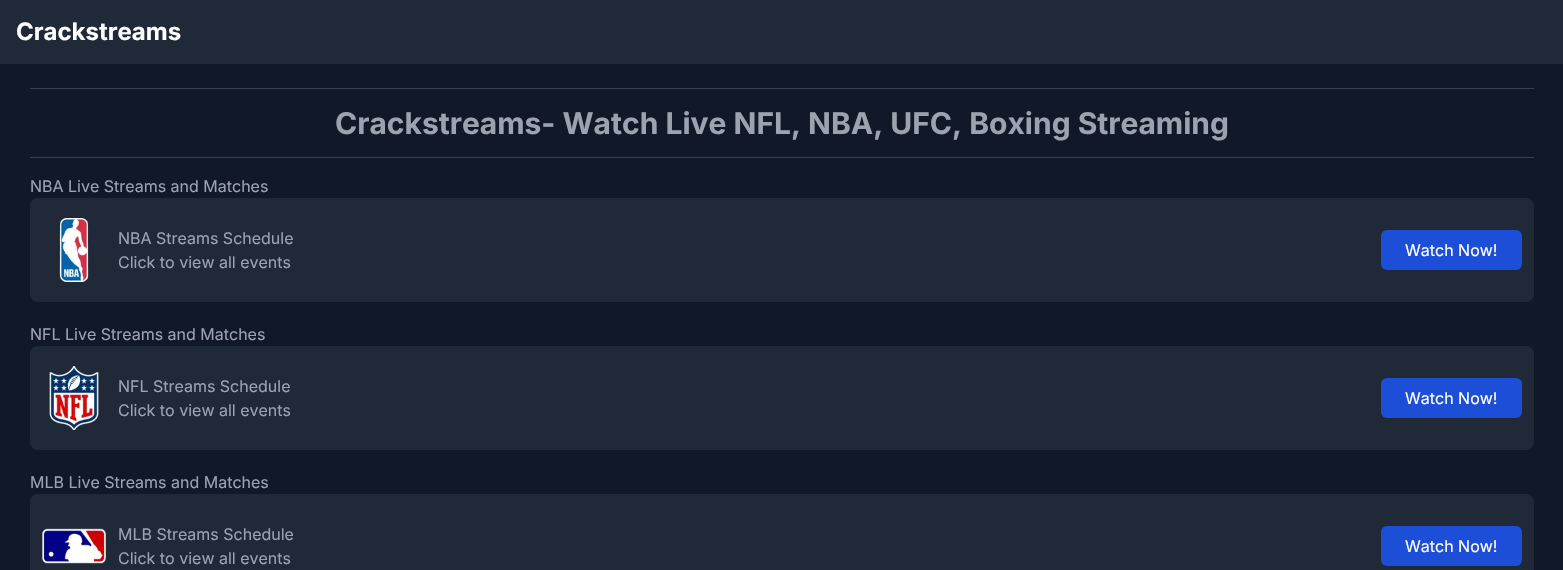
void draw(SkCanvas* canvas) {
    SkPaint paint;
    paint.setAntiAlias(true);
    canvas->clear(0xFF111827);
    paint.setColor(0xFF1F2937);
    canvas->drawRect(SkRect::MakeXYWH(0, 0, 1563, 64), paint);
    SkFont font1(fontMgr->matchFamilyStyle("Inter", SkFontStyle::Bold()), 24);
    font1.setSubpixel(true);
    paint.setColor(0xFFFFFFFF);
    canvas->drawString("Crackstreams", 16, 40, font1, paint);
    paint.setColor(0xFF374151);
    canvas->drawRect(SkRect::MakeXYWH(30, 88, 1504, 1), paint);
    canvas->drawRect(SkRect::MakeXYWH(30, 157, 1504, 1), paint);
    SkFont font2(fontMgr->matchFamilyStyle("Inter", SkFontStyle::Bold()), 30);
    font2.setSubpixel(true);
    paint.setColor(0xFF9CA3AF);
    canvas->drawString("Crackstreams- Watch Live NFL, NBA, UFC, Boxing Streaming", 335, 134, font2, paint);
    SkFont font3(fontMgr->matchFamilyStyle("Inter", SkFontStyle::Normal()), 16);
    font3.setSubpixel(true);
    canvas->drawString("NBA Live Streams and Matches", 30, 192, font3, paint);
    paint.setColor(0xFF1F2937);
    canvas->drawRoundRect(SkRect::MakeXYWH(30, 198, 1504, 104), 8, 8, paint);
    canvas->drawImageRect(SkImages::DeferredFromEncodedData(SkData::MakeFromFileName("img1.png")), SkRect::MakeXYWH(59, 218, 30, 64), SkSamplingOptions());
    paint.setColor(0xFF9CA3AF);
    canvas->drawString("NBA Streams Schedule", 118, 244, font3, paint);
    canvas->drawString("Click to view all events", 118, 268, font3, paint);
    paint.setColor(0xFF1D4ED8);
    canvas->drawRoundRect(SkRect::MakeXYWH(1381, 230, 141, 40), 6, 6, paint);
    paint.setColor(0xFFFFFFFF);
    canvas->drawString("Watch Now!", 1405, 256, font3, paint);
    paint.setColor(0xFF9CA3AF);
    canvas->drawString("NFL Live Streams and Matches", 30, 340, font3, paint);
    paint.setColor(0xFF1F2937);
    canvas->drawRoundRect(SkRect::MakeXYWH(30, 346, 1504, 104), 8, 8, paint);
    canvas->drawImageRect(SkImages::DeferredFromEncodedData(SkData::MakeFromFileName("img2.png")), SkRect::MakeXYWH(49, 366, 50, 64), SkSamplingOptions());
    paint.setColor(0xFF9CA3AF);
    canvas->drawString("NFL Streams Schedule", 118, 392, font3, paint);
    canvas->drawString("Click to view all events", 118, 416, font3, paint);
    paint.setColor(0xFF1D4ED8);
    canvas->drawRoundRect(SkRect::MakeXYWH(1381, 378, 141, 40), 6, 6, paint);
    paint.setColor(0xFFFFFFFF);
    canvas->drawString("Watch Now!", 1405, 404, font3, paint);
    paint.setColor(0xFF9CA3AF);
    canvas->drawString("MLB Live Streams and Matches", 30, 488, font3, paint);
    paint.setColor(0xFF1F2937);
    canvas->drawRoundRect(SkRect::MakeXYWH(30, 494, 1504, 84), 8, 8, paint);
    canvas->drawImageRect(SkImages::DeferredFromEncodedData(SkData::MakeFromFileName("img3.png")), SkRect::MakeXYWH(42, 528, 64, 36), SkSamplingOptions());
    paint.setColor(0xFF9CA3AF);
    canvas->drawString("MLB Streams Schedule", 118, 540, font3, paint);
    canvas->drawString("Click to view all events", 118, 564, font3, paint);
    paint.setColor(0xFF1D4ED8);
    canvas->drawRoundRect(SkRect::MakeXYWH(1381, 526, 141, 40), 6, 6, paint);
    paint.setColor(0xFFFFFFFF);
    canvas->drawString("Watch Now!", 1405, 552, font3, paint);
}
